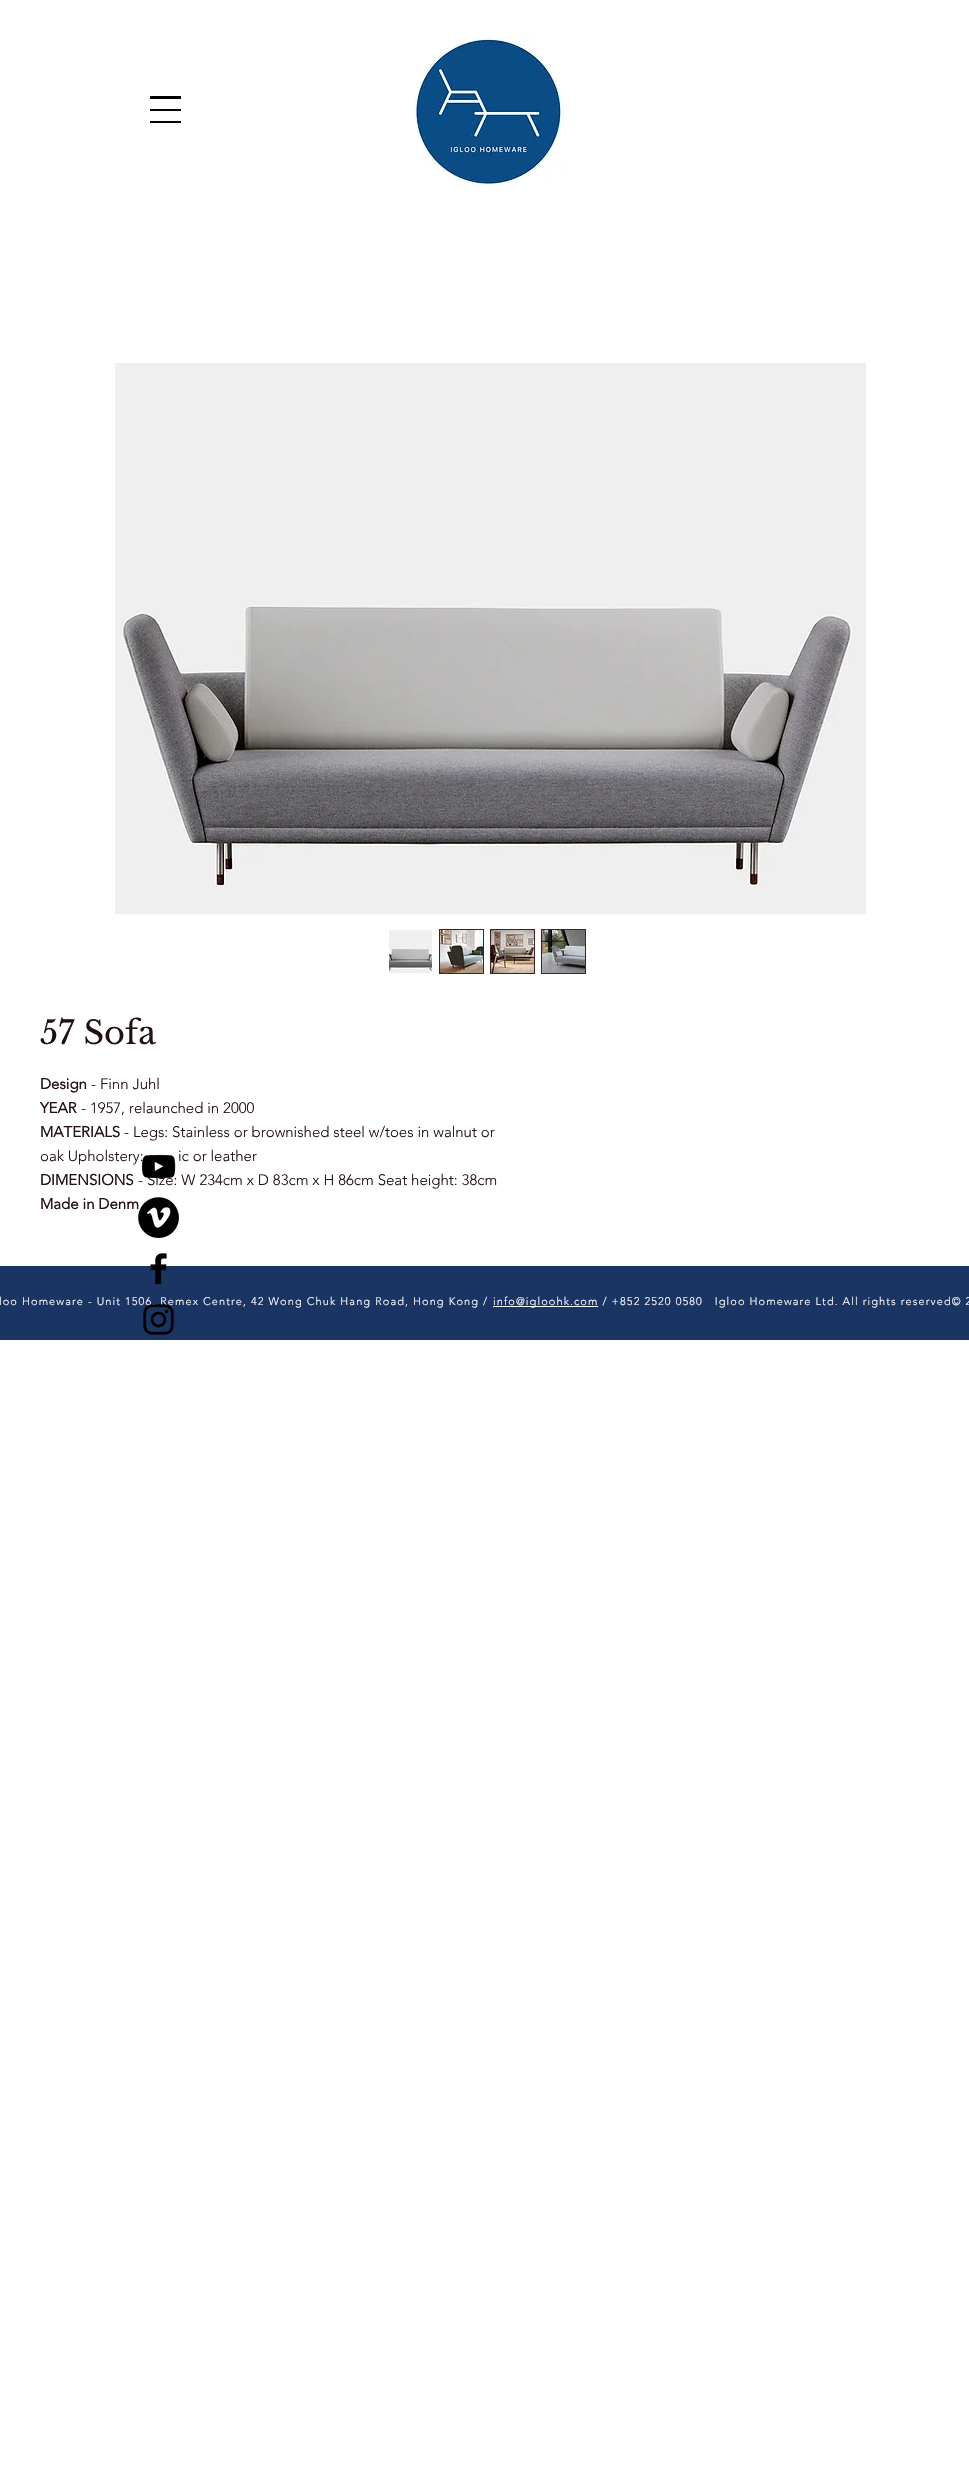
void draw(SkCanvas* canvas) {
    SkPaint paint;
    paint.setAntiAlias(true);
    auto spacedText = [&](const char* s, float x, float y, const SkFont& font, const SkPaint& ink, float letter, float word) {
        std::vector<SkGlyphID> glyphs(font.countText(s, strlen(s), SkTextEncoding::kUTF8));
        std::vector<float> xs(glyphs.size());
        font.textToGlyphs(s, strlen(s), SkTextEncoding::kUTF8, glyphs);
        font.getXPos(glyphs, xs, x);
        float extra = 0;
        for (size_t i = 0; i < glyphs.size(); i++) {
            xs[i] += extra;
            extra += letter + word * (glyphs[i] == font.unicharToGlyph(' '));
        }
        canvas->drawTextBlob(SkTextBlob::MakeFromPosHGlyphs(glyphs, xs, y, font), 0, 0, ink);
    };
    canvas->clear(0xFFFFFFFF);
    paint.setColor(0xFF000000);
    canvas->drawRect(SkRect::MakeXYWH(150, 96, 31, 3), paint);
    canvas->drawRect(SkRect::MakeXYWH(150, 109, 31, 2), paint);
    canvas->drawRect(SkRect::MakeXYWH(150, 121, 31, 2), paint);
    canvas->drawImageRect(SkImages::DeferredFromEncodedData(SkData::MakeFromFileName("img1.png")), SkRect::MakeXYWH(414, 36, 152, 152), SkSamplingOptions());
    canvas->drawImageRect(SkImages::DeferredFromEncodedData(SkData::MakeFromFileName("img2.png")), SkRect::MakeXYWH(115, 363, 751, 551), SkSamplingOptions());
    canvas->drawImageRect(SkImages::DeferredFromEncodedData(SkData::MakeFromFileName("img3.png")), SkRect::MakeXYWH(389, 930, 43, 43), SkSamplingOptions());
    paint.setStyle(SkPaint::kStroke_Style);
    paint.setStrokeWidth(1);
    paint.setColor(0xFF452222);
    canvas->drawRect(SkRect::MakeXYWH(439.5f, 929.5f, 44, 44), paint);
    canvas->drawImageRect(SkImages::DeferredFromEncodedData(SkData::MakeFromFileName("img4.png")), SkRect::MakeXYWH(440, 930, 43, 43), SkSamplingOptions());
    canvas->drawRect(SkRect::MakeXYWH(490.5f, 929.5f, 44, 44), paint);
    canvas->drawImageRect(SkImages::DeferredFromEncodedData(SkData::MakeFromFileName("img5.png")), SkRect::MakeXYWH(491, 930, 43, 43), SkSamplingOptions());
    canvas->drawRect(SkRect::MakeXYWH(541.5f, 929.5f, 44, 44), paint);
    canvas->drawImageRect(SkImages::DeferredFromEncodedData(SkData::MakeFromFileName("img6.png")), SkRect::MakeXYWH(542, 930, 43, 43), SkSamplingOptions());
    SkFont font1(fontMgr->matchFamilyStyle("Libre Baskerville", SkFontStyle::Normal()), 32);
    font1.setSubpixel(true);
    paint.setStyle(SkPaint::kFill_Style);
    paint.setColor(0xFF231111);
    canvas->drawString("57 Sofa", 40, 1044, font1, paint);
    SkFont font2(fontMgr->matchFamilyStyle("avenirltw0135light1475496", SkFontStyle::Bold()), 15);
    font2.setSubpixel(true);
    canvas->drawString("Design", 40, 1089, font2, paint);
    SkFont font3(fontMgr->matchFamilyStyle("avenirltw0135light1475496", SkFontStyle(300, SkFontStyle::kNormal_Width, SkFontStyle::kUpright_Slant)), 15);
    font3.setSubpixel(true);
    canvas->drawString("- Finn Juhl", 91, 1089, font3, paint);
    canvas->drawString("YEAR", 40, 1113, font2, paint);
    canvas->drawString("- 1957, relaunched in 2000", 81, 1113, font3, paint);
    canvas->drawString("MATERIALS", 40, 1137, font2, paint);
    canvas->drawString("- Legs: Stainless or brownished steel w/toes in walnut or", 124, 1137, font3, paint);
    canvas->drawString("oak Upholstery:", 40, 1161, font3, paint);
    canvas->drawString("ic or leather", 178, 1161, font3, paint);
    canvas->drawString("DIMENSIONS", 40, 1185, font2, paint);
    canvas->drawString("- Size: W 234cm x D 83cm x H 86cm Seat height: 38cm", 138, 1185, font3, paint);
    canvas->drawString("Made in Denm", 40, 1209, font2, paint);
    canvas->drawImageRect(SkImages::DeferredFromEncodedData(SkData::MakeFromFileName("img7.png")), SkRect::MakeXYWH(141, 1154, 35, 25), SkSamplingOptions());
    canvas->drawImageRect(SkImages::DeferredFromEncodedData(SkData::MakeFromFileName("img8.png")), SkRect::MakeXYWH(138, 1197, 41, 41), SkSamplingOptions());
    paint.setColor(0xFF1A3463);
    canvas->drawRect(SkRect::MakeXYWH(0, 1266, 969, 74), paint);
    canvas->drawImageRect(SkImages::DeferredFromEncodedData(SkData::MakeFromFileName("img9.png")), SkRect::MakeXYWH(150, 1253, 17, 32), SkSamplingOptions());
    SkFont font4(fontMgr->matchFamilyStyle("avenirltw0135light1475496", SkFontStyle(300, SkFontStyle::kNormal_Width, SkFontStyle::kUpright_Slant)), 11);
    font4.setSubpixel(true);
    paint.setColor(0xFFFFFFFF);
    spacedText("loo Homeware - Unit 1506, Remex Centre, 42 Wong Chuk Hang Road, Hong Kong /", -1, 1305, font4, paint, 1.1f, 0);
    canvas->drawImageRect(SkImages::DeferredFromEncodedData(SkData::MakeFromFileName("img10.png")), SkRect::MakeXYWH(143, 1304, 31, 31), SkSamplingOptions());
    canvas->drawRect(SkRect::MakeXYWH(493, 1306, 105, 1), paint);
    spacedText("info@igloohk.com / +852 2520 0580   Igloo Homeware Ltd. All rights reserved© 2", 493, 1305, font4, paint, 1.1f, 0);
}
